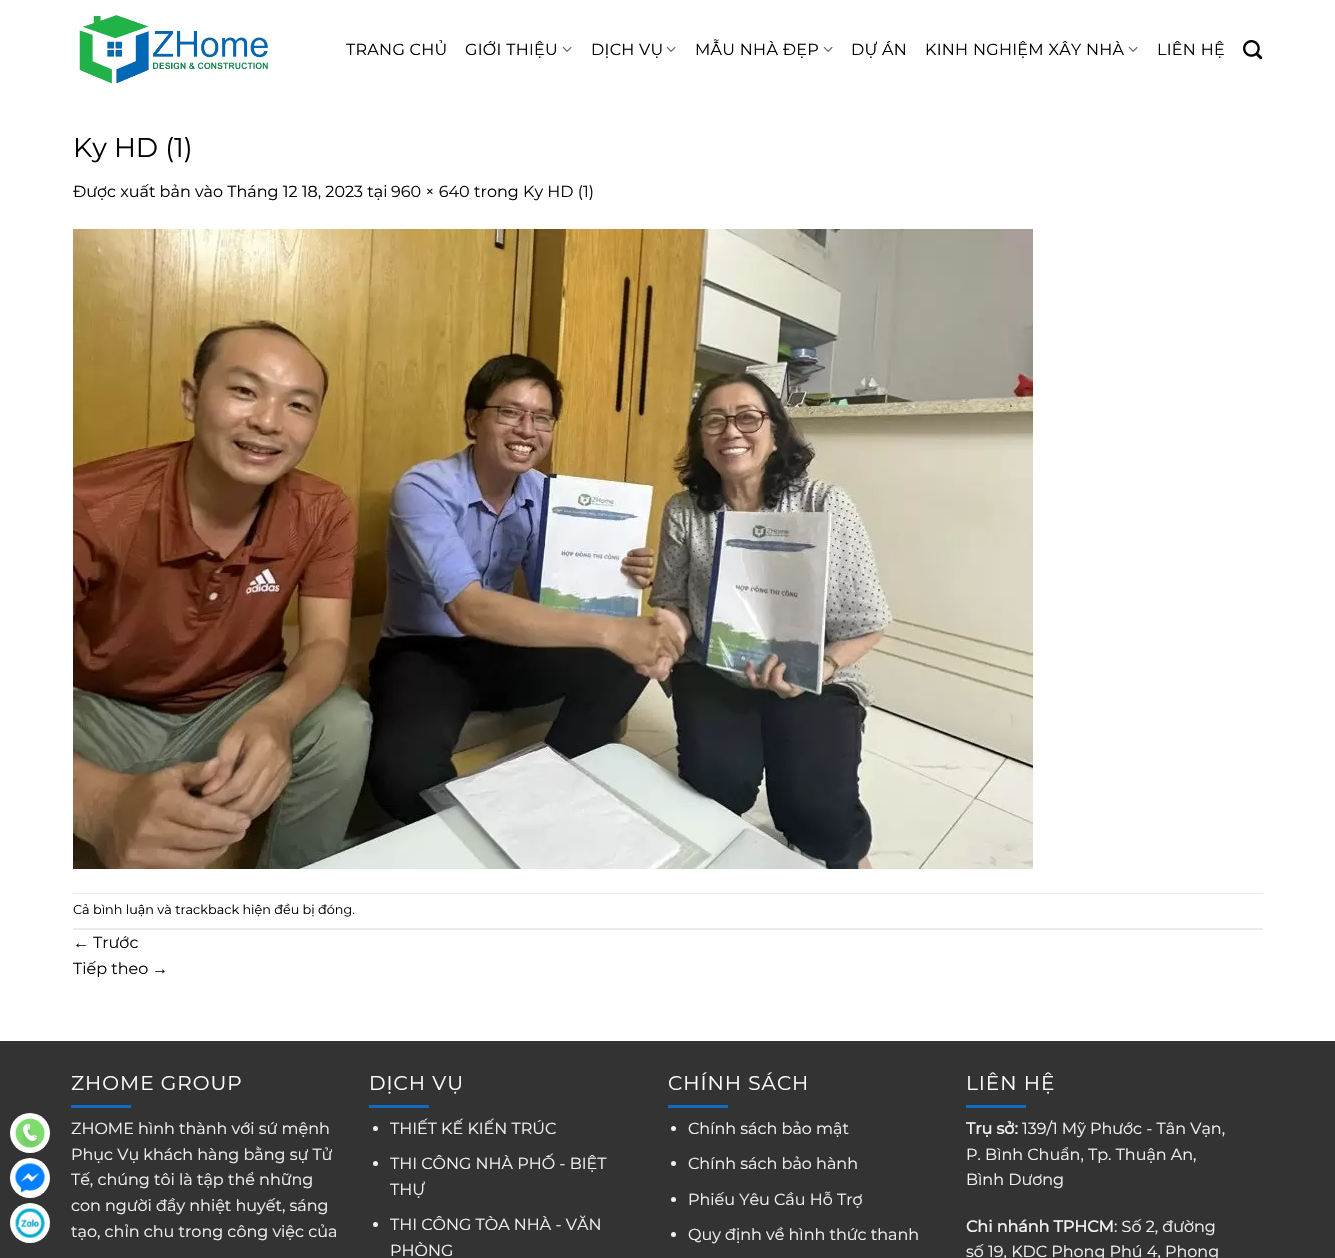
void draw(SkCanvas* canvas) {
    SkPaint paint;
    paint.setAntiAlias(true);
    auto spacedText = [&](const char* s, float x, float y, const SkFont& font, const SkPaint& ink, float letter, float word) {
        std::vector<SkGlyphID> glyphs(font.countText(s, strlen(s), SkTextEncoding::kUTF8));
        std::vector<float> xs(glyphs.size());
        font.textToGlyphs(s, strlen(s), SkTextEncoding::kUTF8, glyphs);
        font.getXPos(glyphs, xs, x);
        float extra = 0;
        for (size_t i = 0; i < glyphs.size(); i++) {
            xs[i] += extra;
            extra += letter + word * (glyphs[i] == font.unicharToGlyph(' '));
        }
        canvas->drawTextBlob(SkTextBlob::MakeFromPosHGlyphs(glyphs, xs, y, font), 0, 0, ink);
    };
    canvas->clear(0xFFFFFFFF);
    paint.setColor(0xFF333333);
    canvas->drawRect(SkRect::MakeXYWH(0, 1041, 1335, 217), paint);
    paint.setColor(0xFFFFFFFF);
    canvas->drawCircle(30, 1133, 20, paint);
    canvas->drawImageRect(SkImages::DeferredFromEncodedData(SkData::MakeFromFileName("img1.png")), SkRect::MakeXYWH(15, 1118, 30, 30), SkSamplingOptions());
    canvas->drawCircle(30, 1178, 20, paint);
    canvas->drawImageRect(SkImages::DeferredFromEncodedData(SkData::MakeFromFileName("img2.png")), SkRect::MakeXYWH(15, 1163, 30, 30), SkSamplingOptions());
    canvas->drawCircle(30, 1223, 20, paint);
    canvas->drawImageRect(SkImages::DeferredFromEncodedData(SkData::MakeFromFileName("img3.png")), SkRect::MakeXYWH(15, 1208, 30, 30), SkSamplingOptions());
    canvas->drawImageRect(SkImages::DeferredFromEncodedData(SkData::MakeFromFileName("img4.png")), SkRect::MakeXYWH(79, 15, 189, 69), SkSamplingOptions());
    SkFont font1(fontMgr->matchFamilyStyle("Montserrat", SkFontStyle(100, SkFontStyle::kNormal_Width, SkFontStyle::kUpright_Slant)), 16);
    font1.setSubpixel(true);
    paint.setColor(0xFF000000);
    spacedText("TRANG CHỦ", 346, 55, font1, paint, 0.3f, 0);
    spacedText("GIỚI THIỆU", 465, 55, font1, paint, 0.3f, 0);
    canvas->drawImageRect(SkImages::DeferredFromEncodedData(SkData::MakeFromFileName("img5.png")), SkRect::MakeXYWH(562, 46, 10, 6), SkSamplingOptions());
    spacedText("DỊCH VỤ", 591, 55, font1, paint, 0.3f, 0);
    canvas->drawImageRect(SkImages::DeferredFromEncodedData(SkData::MakeFromFileName("img5.png")), SkRect::MakeXYWH(666, 46, 10, 6), SkSamplingOptions());
    spacedText("MẪU NHÀ ĐẸP", 695, 55, font1, paint, 0.3f, 0);
    canvas->drawImageRect(SkImages::DeferredFromEncodedData(SkData::MakeFromFileName("img5.png")), SkRect::MakeXYWH(823, 46, 10, 6), SkSamplingOptions());
    spacedText("DỰ ÁN", 851, 55, font1, paint, 0.3f, 0);
    spacedText("KINH NGHIỆM XÂY NHÀ", 925, 55, font1, paint, 0.3f, 0);
    canvas->drawImageRect(SkImages::DeferredFromEncodedData(SkData::MakeFromFileName("img5.png")), SkRect::MakeXYWH(1128, 46, 10, 6), SkSamplingOptions());
    spacedText("LIÊN HỆ", 1157, 55, font1, paint, 0.3f, 0);
    canvas->drawImageRect(SkImages::DeferredFromEncodedData(SkData::MakeFromFileName("img6.png")), SkRect::MakeXYWH(1243, 40, 20, 20), SkSamplingOptions());
    SkFont font2(fontMgr->matchFamilyStyle("Montserrat", SkFontStyle(100, SkFontStyle::kNormal_Width, SkFontStyle::kUpright_Slant)), 27);
    font2.setSubpixel(true);
    canvas->drawString("Ky HD (1)", 73, 157, font2, paint);
    canvas->drawString("Được xuất bản vào Tháng 12 18, 2023 tại", 73, 197, font1, paint);
    paint.setColor(0xFF0A0A0A);
    canvas->drawString("960 × 640", 391, 197, font1, paint);
    paint.setColor(0xFF000000);
    canvas->drawString("trong", 474, 197, font1, paint);
    paint.setColor(0xFF0A0A0A);
    canvas->drawString("Ky HD (1)", 523, 197, font1, paint);
    canvas->drawImageRect(SkImages::DeferredFromEncodedData(SkData::MakeFromFileName("img7.png")), SkRect::MakeXYWH(73, 229, 960, 640), SkSamplingOptions());
    paint.setColor(0xFFECECEC);
    canvas->drawRect(SkRect::MakeXYWH(73, 893, 1190, 1), paint);
    canvas->drawRect(SkRect::MakeXYWH(73, 928, 1190, 2), paint);
    SkFont font3(fontMgr->matchFamilyStyle("Montserrat", SkFontStyle(100, SkFontStyle::kNormal_Width, SkFontStyle::kUpright_Slant)), 12.8f);
    font3.setSubpixel(true);
    paint.setColor(0xFF000000);
    canvas->drawString("Cả bình luận và trackback hiện đều bị đóng.", 73, 914, font3, paint);
    SkFont font4(fontMgr->matchFamilyStyle("Liberation Sans", SkFontStyle::Normal()), 16);
    font4.setSubpixel(true);
    paint.setColor(0xFF0A0A0A);
    canvas->drawString("←", 73, 948, font4, paint);
    canvas->drawString("Trước", 93, 948, font1, paint);
    canvas->drawString("Tiếp theo", 73, 974, font1, paint);
    canvas->drawString("→", 152, 974, font4, paint);
    SkFont font5(fontMgr->matchFamilyStyle("Montserrat", SkFontStyle(100, SkFontStyle::kNormal_Width, SkFontStyle::kUpright_Slant)), 20);
    font5.setSubpixel(true);
    paint.setColor(0xFFFFFFFF);
    spacedText("ZHOME GROUP", 71, 1090, font5, paint, 1, 0);
    paint.setColor(0xFF106BC2);
    canvas->drawRect(SkRect::MakeXYWH(71, 1105, 60, 3), paint);
    paint.setColor(0xFFF1F1F1);
    canvas->drawString("ZHOME hình thành với sứ mệnh", 71, 1134, font1, paint);
    canvas->drawString("Phục Vụ khách hàng bằng sự Tử", 71, 1160, font1, paint);
    canvas->drawString("Tế, chúng tôi là tập thể những", 71, 1185, font1, paint);
    canvas->drawString("con người đầy nhiệt huyết, sáng", 71, 1211, font1, paint);
    canvas->drawString("tạo, chỉn chu trong công việc của", 71, 1237, font1, paint);
    paint.setColor(0xFFFFFFFF);
    spacedText("DỊCH VỤ", 369, 1090, font5, paint, 1, 0);
    paint.setColor(0xFF106BC2);
    canvas->drawRect(SkRect::MakeXYWH(369, 1105, 60, 3), paint);
    paint.setColor(0xFFF1F1F1);
    canvas->drawCircle(375.5f, 1128.5f, 2.5f, paint);
    canvas->drawString("THIẾT KẾ KIẾN TRÚC", 390, 1134, font1, paint);
    canvas->drawCircle(375.5f, 1163.5f, 2.5f, paint);
    canvas->drawString("THI CÔNG NHÀ PHỐ - BIỆT", 390, 1169, font1, paint);
    canvas->drawString("THỰ", 390, 1195, font1, paint);
    canvas->drawCircle(375.5f, 1224.5f, 2.5f, paint);
    canvas->drawString("THI CÔNG TÒA NHÀ - VĂN", 390, 1230, font1, paint);
    canvas->drawString("PHÒNG", 390, 1256, font1, paint);
    paint.setColor(0xFFFFFFFF);
    spacedText("CHÍNH SÁCH", 668, 1090, font5, paint, 1, 0);
    paint.setColor(0xFF106BC2);
    canvas->drawRect(SkRect::MakeXYWH(668, 1105, 60, 3), paint);
    paint.setColor(0xFFF1F1F1);
    canvas->drawCircle(673.5f, 1128.5f, 2.5f, paint);
    canvas->drawString("Chính sách bảo mật", 688, 1134, font1, paint);
    canvas->drawCircle(673.5f, 1163.5f, 2.5f, paint);
    canvas->drawString("Chính sách bảo hành", 688, 1169, font1, paint);
    canvas->drawCircle(673.5f, 1199.5f, 2.5f, paint);
    canvas->drawString("Phiếu Yêu Cầu Hỗ Trợ", 688, 1205, font1, paint);
    canvas->drawCircle(673.5f, 1234.5f, 2.5f, paint);
    canvas->drawString("Quy định về hình thức thanh", 688, 1240, font1, paint);
    paint.setColor(0xFFFFFFFF);
    spacedText("LIÊN HỆ", 966, 1090, font5, paint, 1, 0);
    paint.setColor(0xFF106BC2);
    canvas->drawRect(SkRect::MakeXYWH(966, 1105, 60, 3), paint);
    SkFont font6(fontMgr->matchFamilyStyle("Montserrat", SkFontStyle::Bold()), 16);
    font6.setSubpixel(true);
    paint.setColor(0xFFF1F1F1);
    canvas->drawString("Trụ sở:", 966, 1134, font6, paint);
    canvas->drawString("139/1 Mỹ Phước - Tân Vạn,", 1022, 1134, font1, paint);
    canvas->drawString("P. Bình Chuẩn, Tp. Thuận An,", 966, 1160, font1, paint);
    canvas->drawString("Bình Dương", 966, 1185, font1, paint);
    canvas->drawString("Chi nhánh TPHCM", 966, 1232, font6, paint);
    canvas->drawString(": Số 2, đường", 1114, 1232, font1, paint);
    canvas->drawString("số 19, KDC Phong Phú 4, Phong", 966, 1257, font1, paint);
}
